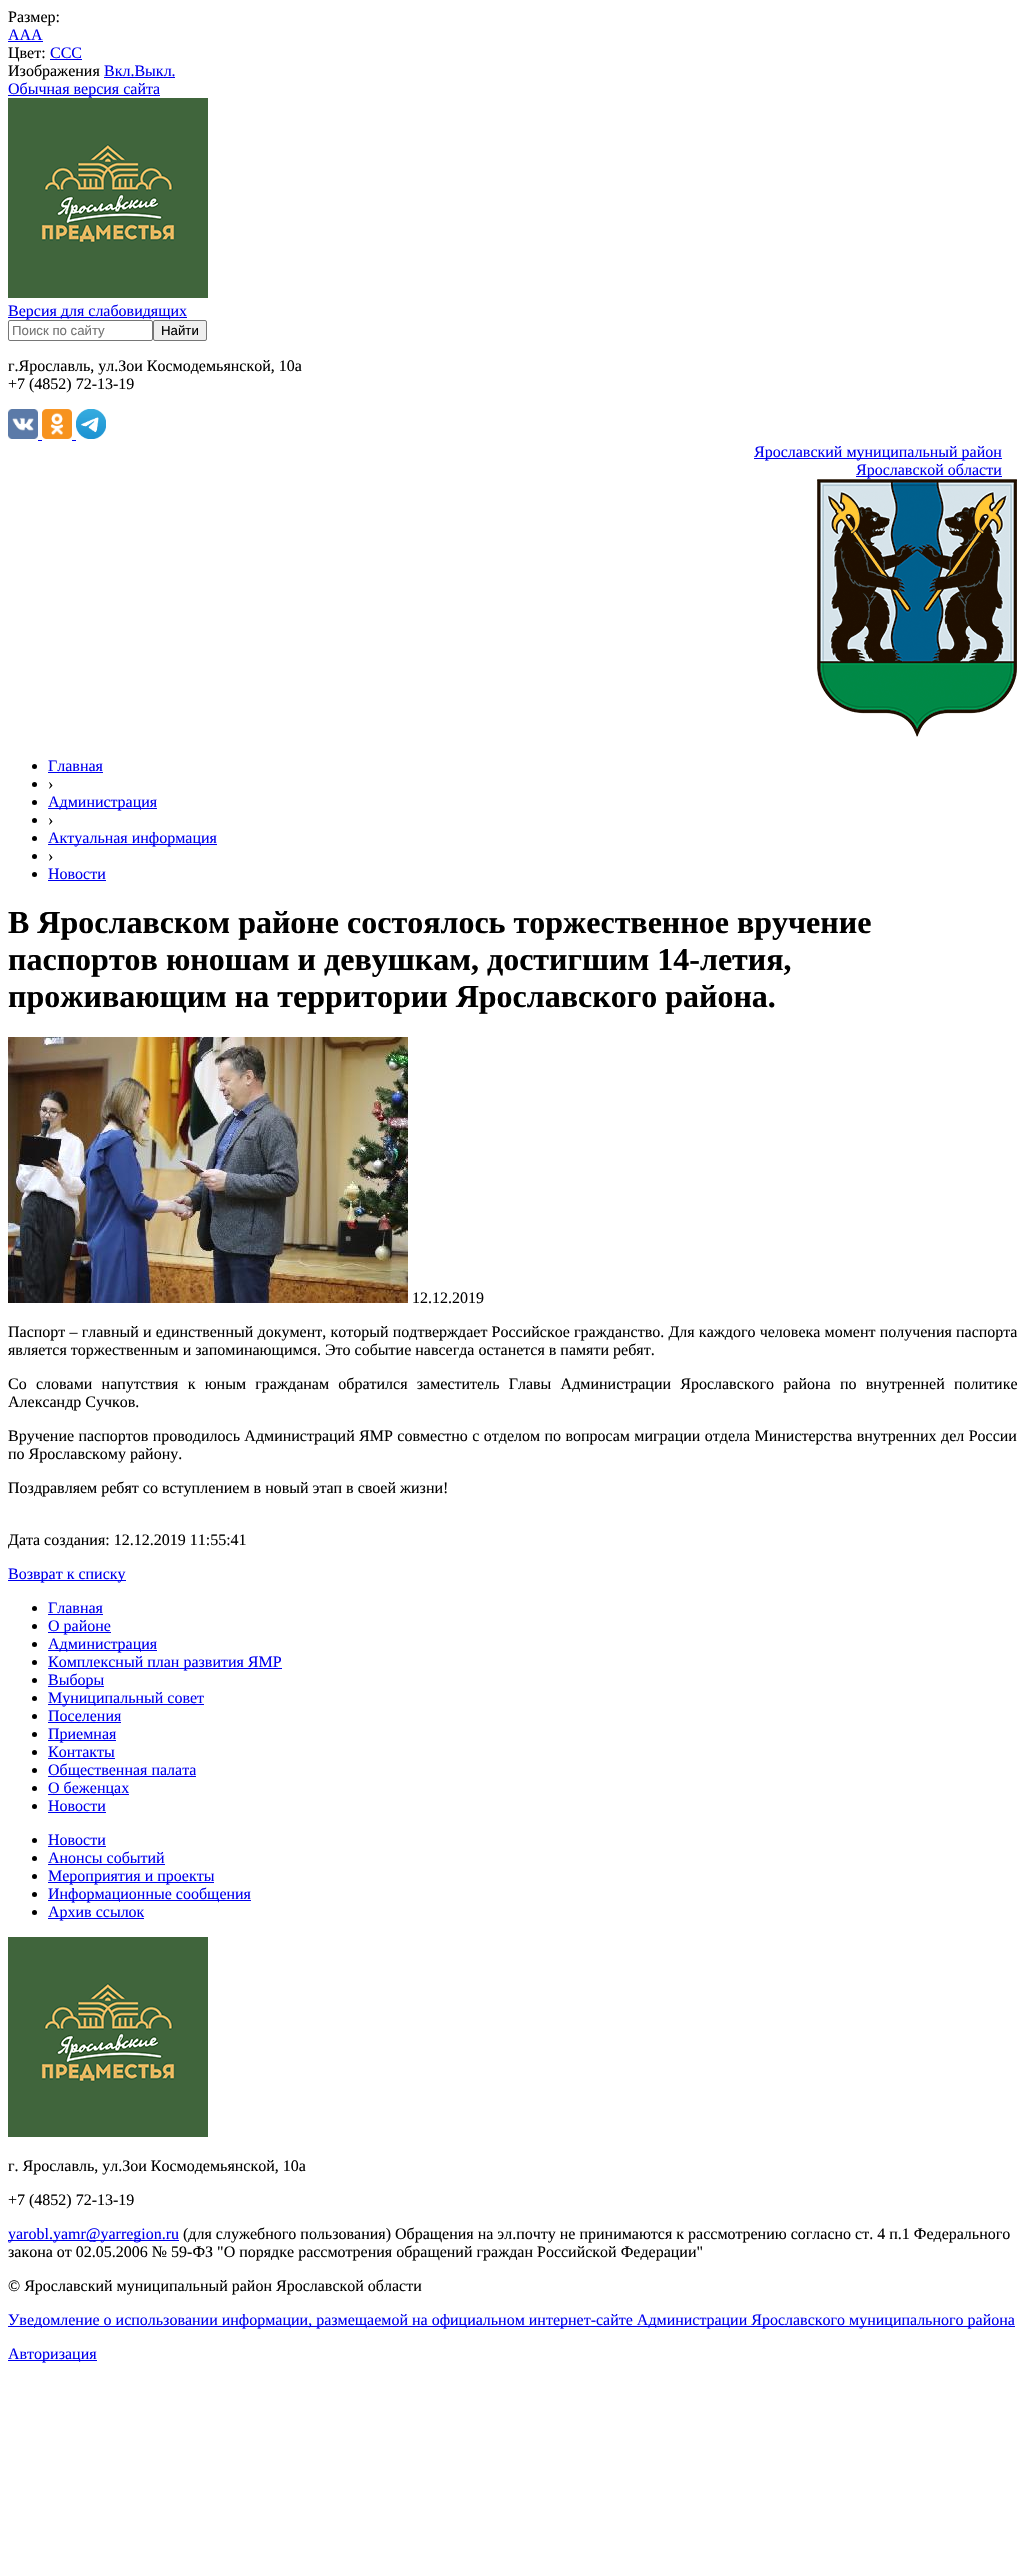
void draw(SkCanvas* canvas) {
    SkPaint paint;
    paint.setAntiAlias(true);
    auto spacedText = [&](const char* s, float x, float y, const SkFont& font, const SkPaint& ink, float letter, float word) {
        std::vector<SkGlyphID> glyphs(font.countText(s, strlen(s), SkTextEncoding::kUTF8));
        std::vector<float> xs(glyphs.size());
        font.textToGlyphs(s, strlen(s), SkTextEncoding::kUTF8, glyphs);
        font.getXPos(glyphs, xs, x);
        float extra = 0;
        for (size_t i = 0; i < glyphs.size(); i++) {
            xs[i] += extra;
            extra += letter + word * (glyphs[i] == font.unicharToGlyph(' '));
        }
        canvas->drawTextBlob(SkTextBlob::MakeFromPosHGlyphs(glyphs, xs, y, font), 0, 0, ink);
    };
    canvas->clear(0xFFFFFFFF);
    SkFont font1(fontMgr->matchFamilyStyle("Liberation Serif", SkFontStyle::Normal()), 16);
    font1.setSubpixel(true);
    paint.setColor(0xFF000000);
    canvas->drawString("Размер:", 8, 22, font1, paint);
    paint.setColor(0xFF0000EE);
    canvas->drawString("AAA", 8, 40, font1, paint);
    canvas->drawRect(SkRect::MakeXYWH(8, 41, 35, 1), paint);
    paint.setColor(0xFF000000);
    canvas->drawString("Цвет:", 8, 58, font1, paint);
    paint.setColor(0xFF0000EE);
    canvas->drawString("CCC", 50, 58, font1, paint);
    canvas->drawRect(SkRect::MakeXYWH(50, 59, 32, 1), paint);
    paint.setColor(0xFF000000);
    canvas->drawString("Изображения", 8, 76, font1, paint);
    paint.setColor(0xFF0000EE);
    canvas->drawString("Вкл.Выкл.", 104, 76, font1, paint);
    canvas->drawRect(SkRect::MakeXYWH(104, 77, 71, 1), paint);
    canvas->drawRect(SkRect::MakeXYWH(8, 95, 152, 1), paint);
    canvas->drawString("Обычная версия сайта", 8, 94, font1, paint);
    canvas->drawImageRect(SkImages::DeferredFromEncodedData(SkData::MakeFromFileName("img1.png")), SkRect::MakeXYWH(8, 98, 200, 200), SkSamplingOptions());
    canvas->drawRect(SkRect::MakeXYWH(8, 317, 179, 1), paint);
    canvas->drawString("Версия для слабовидящих", 8, 316, font1, paint);
    paint.setStyle(SkPaint::kStroke_Style);
    paint.setStrokeWidth(1);
    paint.setColor(0xFF767676);
    canvas->drawRoundRect(SkRect::MakeXYWH(8.5f, 320.5f, 144, 20), 1.5f, 1.5f, paint);
    SkFont font2(fontMgr->matchFamilyStyle("Liberation Sans", SkFontStyle::Normal()), 13.25f);
    font2.setSubpixel(true);
    paint.setStyle(SkPaint::kFill_Style);
    paint.setColor(0xFF757575);
    canvas->drawString("Поиск по сайту", 12, 335, font2, paint);
    paint.setColor(0xFFEFEFEF);
    canvas->drawRoundRect(SkRect::MakeXYWH(153.5f, 320.5f, 53, 20), 1.5f, 1.5f, paint);
    paint.setStyle(SkPaint::kStroke_Style);
    paint.setColor(0xFF767676);
    canvas->drawRoundRect(SkRect::MakeXYWH(153.5f, 320.5f, 53, 20), 1.5f, 1.5f, paint);
    paint.setStyle(SkPaint::kFill_Style);
    paint.setColor(0xFF000000);
    canvas->drawString("Найти", 161, 335, font2, paint);
    canvas->drawString("г.Ярославль, ул.Зои Космодемьянской, 10а", 8, 371, font1, paint);
    canvas->drawString("+7 (4852) 72-13-19", 8, 389, font1, paint);
    canvas->drawImageRect(SkImages::DeferredFromEncodedData(SkData::MakeFromFileName("img2.png")), SkRect::MakeXYWH(8, 409, 30, 30), SkSamplingOptions());
    canvas->drawImageRect(SkImages::DeferredFromEncodedData(SkData::MakeFromFileName("img3.png")), SkRect::MakeXYWH(42, 409, 30, 30), SkSamplingOptions());
    canvas->drawImageRect(SkImages::DeferredFromEncodedData(SkData::MakeFromFileName("img4.png")), SkRect::MakeXYWH(76, 409, 30, 30), SkSamplingOptions());
    paint.setColor(0xFF0000EE);
    canvas->drawRect(SkRect::MakeXYWH(38, 440, 4, 1), paint);
    canvas->drawRect(SkRect::MakeXYWH(72, 440, 4, 1), paint);
    canvas->drawRect(SkRect::MakeXYWH(754, 458, 248, 1), paint);
    canvas->drawString("Ярославский муниципальный район", 754, 457, font1, paint);
    canvas->drawRect(SkRect::MakeXYWH(856, 476, 146, 1), paint);
    canvas->drawString("Ярославской области", 856, 475, font1, paint);
    canvas->drawImageRect(SkImages::DeferredFromEncodedData(SkData::MakeFromFileName("img5.png")), SkRect::MakeXYWH(817, 479, 200, 258), SkSamplingOptions());
    paint.setColor(0xFF000000);
    canvas->drawCircle(34.5f, 766.5f, 2.5f, paint);
    paint.setColor(0xFF0000EE);
    canvas->drawString("Главная", 48, 771, font1, paint);
    canvas->drawRect(SkRect::MakeXYWH(48, 772, 55, 1), paint);
    paint.setColor(0xFF000000);
    canvas->drawCircle(34.5f, 784.5f, 2.5f, paint);
    canvas->drawString("›", 48, 789, font1, paint);
    canvas->drawCircle(34.5f, 802.5f, 2.5f, paint);
    paint.setColor(0xFF0000EE);
    canvas->drawRect(SkRect::MakeXYWH(48, 808, 109, 1), paint);
    canvas->drawString("Администрация", 48, 807, font1, paint);
    paint.setColor(0xFF000000);
    canvas->drawCircle(34.5f, 820.5f, 2.5f, paint);
    canvas->drawString("›", 48, 825, font1, paint);
    canvas->drawCircle(34.5f, 838.5f, 2.5f, paint);
    paint.setColor(0xFF0000EE);
    canvas->drawRect(SkRect::MakeXYWH(48, 844, 169, 1), paint);
    canvas->drawString("Актуальная информация", 48, 843, font1, paint);
    paint.setColor(0xFF000000);
    canvas->drawCircle(34.5f, 856.5f, 2.5f, paint);
    canvas->drawString("›", 48, 861, font1, paint);
    canvas->drawCircle(34.5f, 874.5f, 2.5f, paint);
    paint.setColor(0xFF0000EE);
    canvas->drawString("Новости", 48, 879, font1, paint);
    canvas->drawRect(SkRect::MakeXYWH(48, 880, 58, 1), paint);
    SkFont font3(fontMgr->matchFamilyStyle("Liberation Serif", SkFontStyle::Bold()), 32);
    font3.setSubpixel(true);
    paint.setColor(0xFF000000);
    canvas->drawString("В Ярославском районе состоялось торжественное вручение", 8, 933, font3, paint);
    canvas->drawString("паспортов юношам и девушкам, достигшим 14-летия,", 8, 970, font3, paint);
    canvas->drawString("проживающим на территории Ярославского района.", 8, 1007, font3, paint);
    canvas->drawImageRect(SkImages::DeferredFromEncodedData(SkData::MakeFromFileName("img6.png")), SkRect::MakeXYWH(8, 1037, 400, 266), SkSamplingOptions());
    canvas->drawString("12.12.2019", 412, 1303, font1, paint);
    spacedText("Паспорт – главный и единственный документ, который подтверждает Российское гражданство. Для каждого человека момент получения паспорта", 8, 1337, font1, paint, 0, 0.2f);
    canvas->drawString("является торжественным и запоминающимся. Это событие навсегда останется в памяти ребят.", 8, 1355, font1, paint);
    spacedText("Со словами напутствия к юным гражданам обратился заместитель Главы Администрации Ярославского района по внутренней политике", 8, 1389, font1, paint, 0, 5.25f);
    canvas->drawString("Александр Сучков.", 8, 1407, font1, paint);
    spacedText("Вручение паспортов проводилось Администраций ЯМР совместно с отделом по вопросам миграции отдела Министерства внутренних дел России", 8, 1441, font1, paint, 0, 0.4f);
    canvas->drawString("по Ярославскому району.", 8, 1459, font1, paint);
    canvas->drawString("Поздравляем ребят со вступлением в новый этап в своей жизни!", 8, 1493, font1, paint);
    canvas->drawString("Дата создания: 12.12.2019 11:55:41", 8, 1545, font1, paint);
    paint.setColor(0xFF0000EE);
    canvas->drawRect(SkRect::MakeXYWH(8, 1580, 118, 1), paint);
    canvas->drawString("Возврат к списку", 8, 1579, font1, paint);
    paint.setColor(0xFF000000);
    canvas->drawCircle(34.5f, 1608.5f, 2.5f, paint);
    paint.setColor(0xFF0000EE);
    canvas->drawString("Главная", 48, 1613, font1, paint);
    canvas->drawRect(SkRect::MakeXYWH(48, 1614, 55, 1), paint);
    paint.setColor(0xFF000000);
    canvas->drawCircle(34.5f, 1626.5f, 2.5f, paint);
    paint.setColor(0xFF0000EE);
    canvas->drawRect(SkRect::MakeXYWH(48, 1632, 63, 1), paint);
    canvas->drawString("О районе", 48, 1631, font1, paint);
    paint.setColor(0xFF000000);
    canvas->drawCircle(34.5f, 1644.5f, 2.5f, paint);
    paint.setColor(0xFF0000EE);
    canvas->drawRect(SkRect::MakeXYWH(48, 1650, 109, 1), paint);
    canvas->drawString("Администрация", 48, 1649, font1, paint);
    paint.setColor(0xFF000000);
    canvas->drawCircle(34.5f, 1662.5f, 2.5f, paint);
    paint.setColor(0xFF0000EE);
    canvas->drawRect(SkRect::MakeXYWH(48, 1668, 234, 1), paint);
    canvas->drawString("Комплексный план развития ЯМР", 48, 1667, font1, paint);
    paint.setColor(0xFF000000);
    canvas->drawCircle(34.5f, 1680.5f, 2.5f, paint);
    paint.setColor(0xFF0000EE);
    canvas->drawRect(SkRect::MakeXYWH(48, 1686, 56, 1), paint);
    canvas->drawString("Выборы", 48, 1685, font1, paint);
    paint.setColor(0xFF000000);
    canvas->drawCircle(34.5f, 1698.5f, 2.5f, paint);
    paint.setColor(0xFF0000EE);
    canvas->drawRect(SkRect::MakeXYWH(48, 1704, 156, 1), paint);
    canvas->drawString("Муниципальный совет", 48, 1703, font1, paint);
    paint.setColor(0xFF000000);
    canvas->drawCircle(34.5f, 1716.5f, 2.5f, paint);
    paint.setColor(0xFF0000EE);
    canvas->drawString("Поселения", 48, 1721, font1, paint);
    canvas->drawRect(SkRect::MakeXYWH(48, 1722, 73, 1), paint);
    paint.setColor(0xFF000000);
    canvas->drawCircle(34.5f, 1734.5f, 2.5f, paint);
    paint.setColor(0xFF0000EE);
    canvas->drawRect(SkRect::MakeXYWH(48, 1740, 68, 1), paint);
    canvas->drawString("Приемная", 48, 1739, font1, paint);
    paint.setColor(0xFF000000);
    canvas->drawCircle(34.5f, 1752.5f, 2.5f, paint);
    paint.setColor(0xFF0000EE);
    canvas->drawString("Контакты", 48, 1757, font1, paint);
    canvas->drawRect(SkRect::MakeXYWH(48, 1758, 67, 1), paint);
    paint.setColor(0xFF000000);
    canvas->drawCircle(34.5f, 1770.5f, 2.5f, paint);
    paint.setColor(0xFF0000EE);
    canvas->drawRect(SkRect::MakeXYWH(48, 1776, 148, 1), paint);
    canvas->drawString("Общественная палата", 48, 1775, font1, paint);
    paint.setColor(0xFF000000);
    canvas->drawCircle(34.5f, 1788.5f, 2.5f, paint);
    paint.setColor(0xFF0000EE);
    canvas->drawRect(SkRect::MakeXYWH(48, 1794, 81, 1), paint);
    canvas->drawString("О беженцах", 48, 1793, font1, paint);
    paint.setColor(0xFF000000);
    canvas->drawCircle(34.5f, 1806.5f, 2.5f, paint);
    paint.setColor(0xFF0000EE);
    canvas->drawString("Новости", 48, 1811, font1, paint);
    canvas->drawRect(SkRect::MakeXYWH(48, 1812, 58, 1), paint);
    paint.setColor(0xFF000000);
    canvas->drawCircle(34.5f, 1840.5f, 2.5f, paint);
    paint.setColor(0xFF0000EE);
    canvas->drawString("Новости", 48, 1845, font1, paint);
    canvas->drawRect(SkRect::MakeXYWH(48, 1846, 58, 1), paint);
    paint.setColor(0xFF000000);
    canvas->drawCircle(34.5f, 1858.5f, 2.5f, paint);
    paint.setColor(0xFF0000EE);
    canvas->drawString("Анонсы событий", 48, 1863, font1, paint);
    canvas->drawRect(SkRect::MakeXYWH(48, 1864, 117, 1), paint);
    paint.setColor(0xFF000000);
    canvas->drawCircle(34.5f, 1876.5f, 2.5f, paint);
    paint.setColor(0xFF0000EE);
    canvas->drawRect(SkRect::MakeXYWH(48, 1882, 166, 1), paint);
    canvas->drawString("Мероприятия и проекты", 48, 1881, font1, paint);
    paint.setColor(0xFF000000);
    canvas->drawCircle(34.5f, 1894.5f, 2.5f, paint);
    paint.setColor(0xFF0000EE);
    canvas->drawRect(SkRect::MakeXYWH(48, 1900, 203, 1), paint);
    canvas->drawString("Информационные сообщения", 48, 1899, font1, paint);
    paint.setColor(0xFF000000);
    canvas->drawCircle(34.5f, 1912.5f, 2.5f, paint);
    paint.setColor(0xFF0000EE);
    canvas->drawRect(SkRect::MakeXYWH(48, 1918, 96, 1), paint);
    canvas->drawString("Архив ссылок", 48, 1917, font1, paint);
    canvas->drawImageRect(SkImages::DeferredFromEncodedData(SkData::MakeFromFileName("img1.png")), SkRect::MakeXYWH(8, 1937, 200, 200), SkSamplingOptions());
    paint.setColor(0xFF000000);
    canvas->drawString("г. Ярославль, ул.Зои Космодемьянской, 10а", 8, 2171, font1, paint);
    canvas->drawString("+7 (4852) 72-13-19", 8, 2205, font1, paint);
    paint.setColor(0xFF0000EE);
    canvas->drawRect(SkRect::MakeXYWH(8, 2240, 171, 1), paint);
    canvas->drawString("yarobl.yamr@yarregion.ru", 8, 2239, font1, paint);
    paint.setColor(0xFF000000);
    canvas->drawString("(для служебного пользования) Обращения на эл.почту не принимаются к рассмотрению согласно ст. 4 п.1 Федерального", 183, 2239, font1, paint);
    canvas->drawString("закона от 02.05.2006 № 59-ФЗ \"О порядке рассмотрения обращений граждан Российской Федерации\"", 8, 2257, font1, paint);
    canvas->drawString("© Ярославский муниципальный район Ярославской области", 8, 2291, font1, paint);
    paint.setColor(0xFF0000EE);
    canvas->drawRect(SkRect::MakeXYWH(8, 2326, 1007, 1), paint);
    canvas->drawString("Уведомление о использовании информации, размещаемой на официальном интернет-сайте Администрации Ярославского муниципального района", 8, 2325, font1, paint);
    canvas->drawRect(SkRect::MakeXYWH(8, 2360, 89, 1), paint);
    canvas->drawString("Авторизация", 8, 2359, font1, paint);
}
